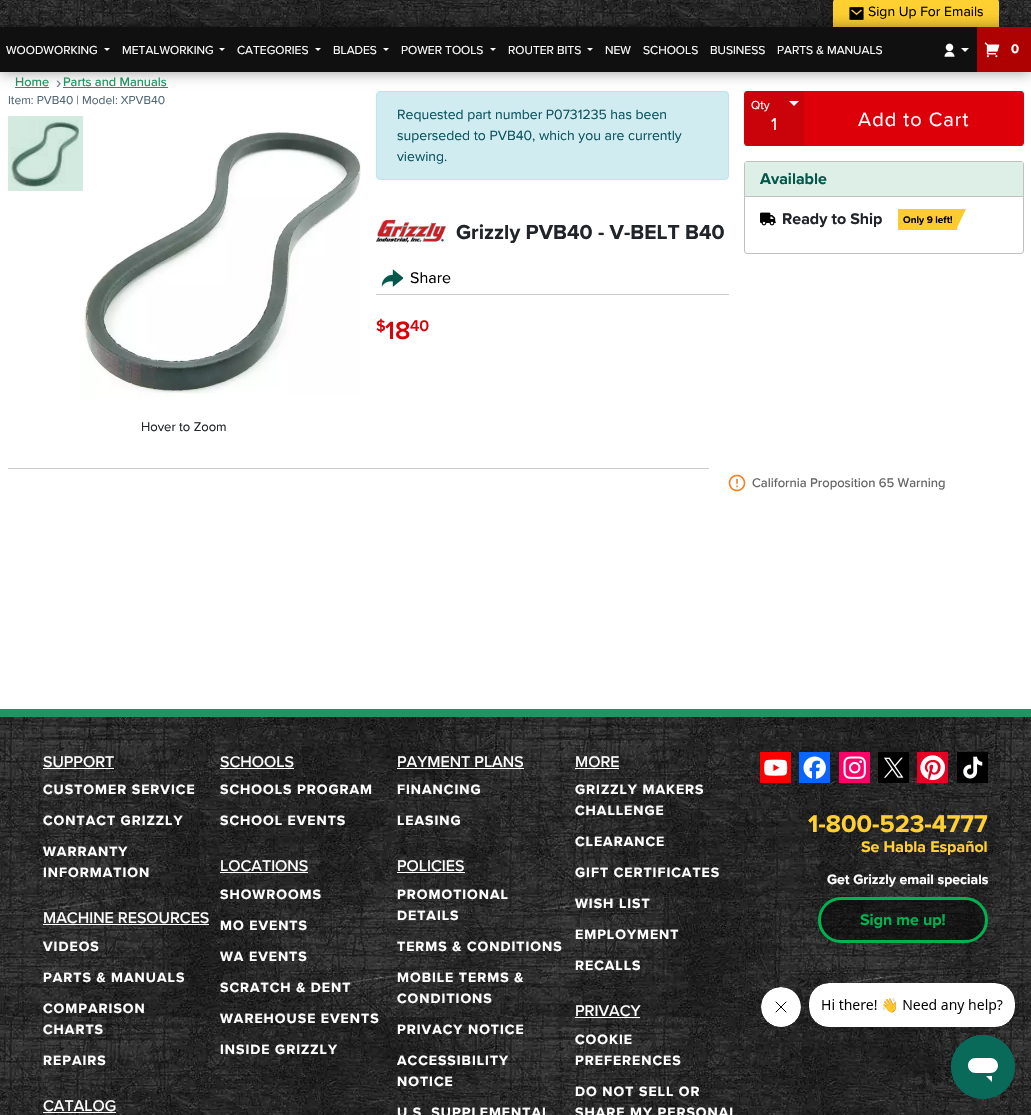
void draw(SkCanvas* canvas) {
    SkPaint paint;
    paint.setAntiAlias(true);
    auto spacedText = [&](const char* s, float x, float y, const SkFont& font, const SkPaint& ink, float letter, float word) {
        std::vector<SkGlyphID> glyphs(font.countText(s, strlen(s), SkTextEncoding::kUTF8));
        std::vector<float> xs(glyphs.size());
        font.textToGlyphs(s, strlen(s), SkTextEncoding::kUTF8, glyphs);
        font.getXPos(glyphs, xs, x);
        float extra = 0;
        for (size_t i = 0; i < glyphs.size(); i++) {
            xs[i] += extra;
            extra += letter + word * (glyphs[i] == font.unicharToGlyph(' '));
        }
        canvas->drawTextBlob(SkTextBlob::MakeFromPosHGlyphs(glyphs, xs, y, font), 0, 0, ink);
    };
    canvas->clear(0xFFFFFFFF);
    paint.setColor(0xFFD2EAE0);
    canvas->drawRect(SkRect::MakeXYWH(8, 116, 75, 75), paint);
    canvas->drawImageRect(SkImages::DeferredFromEncodedData(SkData::MakeFromFileName("img1.png")), SkRect::MakeXYWH(0, 0, 1031, 27), SkSamplingOptions());
    paint.setColor(0xFFFFD032);
    canvas->drawPath(SkPathBuilder().moveTo(836, -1).lineTo(996, -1).cubicTo(997.5f, -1, 999, 0.5f, 999, 2).lineTo(999, 35).lineTo(833, 35).lineTo(833, 2).cubicTo(833, 0.5f, 834.5f, -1, 836, -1).close().detach(), paint);
    canvas->drawImageRect(SkImages::DeferredFromEncodedData(SkData::MakeFromFileName("img2.png")), SkRect::MakeXYWH(849, 7, 15, 13), SkSamplingOptions());
    SkFont font1(fontMgr->matchFamilyStyle("Proxima Nova", SkFontStyle::Normal()), 14);
    font1.setSubpixel(true);
    paint.setColor(0xFF000000);
    canvas->drawString("Sign Up For Emails", 868, 16, font1, paint);
    paint.setColor(0xFF101010);
    canvas->drawRect(SkRect::MakeXYWH(0, 27, 977, 45), paint);
    paint.setColor(0xFF209462);
    canvas->drawRect(SkRect::MakeXYWH(15, 87, 34, 1), paint);
    canvas->drawRect(SkRect::MakeXYWH(63, 87, 105, 1), paint);
    paint.setColor(0xFFD1ECF1);
    canvas->drawRoundRect(SkRect::MakeXYWH(376.5f, 91.5f, 352, 88), 3.5f, 3.5f, paint);
    paint.setStyle(SkPaint::kStroke_Style);
    paint.setStrokeWidth(1);
    paint.setColor(0xFFBEE5EB);
    canvas->drawRoundRect(SkRect::MakeXYWH(376.5f, 91.5f, 352, 88), 3.5f, 3.5f, paint);
    paint.setStyle(SkPaint::kFill_Style);
    paint.setColor(0xFFCA030A);
    canvas->drawPath(SkPathBuilder().moveTo(747, 91).lineTo(804, 91).lineTo(804, 146).lineTo(747, 146).cubicTo(745.5f, 146, 744, 144.5f, 744, 143).lineTo(744, 94).cubicTo(744, 92.5f, 745.5f, 91, 747, 91).close().detach(), paint);
    paint.setColor(0xFFDE0008);
    canvas->drawPath(SkPathBuilder().moveTo(804, 91).lineTo(1021, 91).cubicTo(1022.5f, 91, 1024, 92.5f, 1024, 94).lineTo(1024, 143).cubicTo(1024, 144.5f, 1022.5f, 146, 1021, 146).lineTo(804, 146).close().detach(), paint);
    canvas->save();
    canvas->clipPath(SkPathBuilder(SkPathFillType::kEvenOdd).moveTo(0, 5).lineTo(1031, 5).lineTo(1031, 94).lineTo(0, 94).close().moveTo(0, 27).lineTo(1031, 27).lineTo(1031, 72).lineTo(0, 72).close().detach(), true);
    paint.setColor(0x66000000);
    paint.setMaskFilter(SkMaskFilter::MakeBlur(kNormal_SkBlurStyle, 7));
    canvas->drawRect(SkRect::MakeXYWH(0, 27, 1031, 45), paint);
    paint.setMaskFilter(nullptr);
    canvas->restore();
    SkFont font2(fontMgr->matchFamilyStyle("Proxima Nova", SkFontStyle::Normal()), 12);
    font2.setSubpixel(true);
    paint.setColor(0xFFFFFFFF);
    canvas->drawString("WOODWORKING", 6, 54, font2, paint);
    canvas->drawPath(SkPathBuilder().moveTo(104, 48).lineTo(110, 48).lineTo(107, 51).close().detach(), paint);
    canvas->drawString("METALWORKING", 122, 54, font2, paint);
    canvas->drawPath(SkPathBuilder().moveTo(219, 48).lineTo(225, 48).lineTo(222, 51).close().detach(), paint);
    canvas->drawString("CATEGORIES", 237, 54, font2, paint);
    canvas->drawPath(SkPathBuilder().moveTo(315, 48).lineTo(321, 48).lineTo(318, 51).close().detach(), paint);
    canvas->drawString("BLADES", 333, 54, font2, paint);
    canvas->drawPath(SkPathBuilder().moveTo(383, 48).lineTo(389, 48).lineTo(386, 51).close().detach(), paint);
    canvas->drawString("POWER TOOLS", 401, 54, font2, paint);
    canvas->drawPath(SkPathBuilder().moveTo(490, 48).lineTo(496, 48).lineTo(493, 51).close().detach(), paint);
    canvas->drawString("ROUTER BITS", 508, 54, font2, paint);
    canvas->drawPath(SkPathBuilder().moveTo(587, 48).lineTo(593, 48).lineTo(590, 51).close().detach(), paint);
    canvas->drawString("NEW", 605, 54, font2, paint);
    canvas->drawString("SCHOOLS", 643, 54, font2, paint);
    canvas->drawString("BUSINESS", 710, 54, font2, paint);
    canvas->drawString("PARTS & MANUALS", 777, 54, font2, paint);
    canvas->drawImageRect(SkImages::DeferredFromEncodedData(SkData::MakeFromFileName("img3.png")), SkRect::MakeXYWH(944, 43, 11, 14), SkSamplingOptions());
    canvas->drawPath(SkPathBuilder().moveTo(961, 48).lineTo(969, 48).lineTo(965, 52).close().detach(), paint);
    paint.setColor(0xFFAE0101);
    canvas->drawRect(SkRect::MakeXYWH(977, 27, 54, 45), paint);
    canvas->drawImageRect(SkImages::DeferredFromEncodedData(SkData::MakeFromFileName("img4.png")), SkRect::MakeXYWH(984, 42, 16, 16), SkSamplingOptions());
    SkFont font3(fontMgr->matchFamilyStyle("Proxima Nova", SkFontStyle::Bold()), 13);
    font3.setSubpixel(true);
    paint.setColor(0xFFFFFFFF);
    canvas->drawString("0", 1011, 53, font3, paint);
    SkFont font4(fontMgr->matchFamilyStyle("Proxima Nova", SkFontStyle(500, SkFontStyle::kNormal_Width, SkFontStyle::kUpright_Slant)), 12.75f);
    font4.setSubpixel(true);
    paint.setColor(0xFF209462);
    canvas->drawString("Home", 15, 86, font4, paint);
    SkFont font5(fontMgr->matchFamilyStyle("Proxima Nova", SkFontStyle(500, SkFontStyle::kNormal_Width, SkFontStyle::kUpright_Slant)), 17);
    font5.setSubpixel(true);
    paint.setColor(0xFF727986);
    canvas->drawString("›", 56, 88, font5, paint);
    paint.setColor(0xFF209462);
    canvas->drawString("Parts and Manuals", 63, 86, font4, paint);
    paint.setColor(0xFF536877);
    canvas->drawString("Item: PVB40 | Model: XPVB40", 8, 104, font2, paint);
    canvas->drawImageRect(SkImages::DeferredFromEncodedData(SkData::MakeFromFileName("img5.png")), SkRect::MakeXYWH(11, 120, 68, 67), SkSamplingOptions());
    canvas->drawImageRect(SkImages::DeferredFromEncodedData(SkData::MakeFromFileName("img6.png")), SkRect::MakeXYWH(84, 131, 277, 266), SkSamplingOptions());
    SkFont font6(fontMgr->matchFamilyStyle("Proxima Nova", SkFontStyle::Normal()), 13);
    font6.setSubpixel(true);
    paint.setColor(0xFF212529);
    canvas->drawString("Hover to Zoom", 141, 431, font6, paint);
    paint.setColor(0xFF0C5460);
    canvas->drawString("Requested part number P0731235 has been", 397, 119, font1, paint);
    canvas->drawString("superseded to PVB40, which you are currently", 397, 140, font1, paint);
    canvas->drawString("viewing.", 397, 161, font1, paint);
    paint.setColor(0xFFCCCCCC);
    canvas->drawRect(SkRect::MakeXYWH(376, 294, 353, 1), paint);
    canvas->drawImageRect(SkImages::DeferredFromEncodedData(SkData::MakeFromFileName("img7.png")), SkRect::MakeXYWH(376, 219, 70, 24), SkSamplingOptions());
    SkFont font7(fontMgr->matchFamilyStyle("Proxima Nova", SkFontStyle::Bold()), 21);
    font7.setSubpixel(true);
    paint.setColor(0xFF212529);
    canvas->drawString("Grizzly PVB40 - V-BELT B40", 456, 239, font7, paint);
    canvas->drawImageRect(SkImages::DeferredFromEncodedData(SkData::MakeFromFileName("img8.png")), SkRect::MakeXYWH(381, 269, 22, 18), SkSamplingOptions());
    SkFont font8(fontMgr->matchFamilyStyle("Proxima Nova", SkFontStyle::Normal()), 16);
    font8.setSubpixel(true);
    paint.setColor(0xFF000000);
    canvas->drawString("Share", 410, 283, font8, paint);
    SkFont font9(fontMgr->matchFamilyStyle("Proxima Nova", SkFontStyle(600, SkFontStyle::kNormal_Width, SkFontStyle::kUpright_Slant)), 16);
    font9.setSubpixel(true);
    paint.setColor(0xFFDE0008);
    canvas->drawString("$", 376, 331, font9, paint);
    SkFont font10(fontMgr->matchFamilyStyle("Proxima Nova", SkFontStyle(600, SkFontStyle::kNormal_Width, SkFontStyle::kUpright_Slant)), 26);
    font10.setSubpixel(true);
    canvas->drawString("18", 385, 339, font10, paint);
    canvas->drawString("40", 410, 331, font9, paint);
    paint.setColor(0xFFFFFFFF);
    canvas->drawString("Qty", 751, 109, font2, paint);
    canvas->drawPath(SkPathBuilder().moveTo(789, 101).lineTo(799, 101).lineTo(794, 106).close().detach(), paint);
    SkFont font11(fontMgr->matchFamilyStyle("Proxima Nova", SkFontStyle::Normal()), 18);
    font11.setSubpixel(true);
    canvas->drawString("1", 771, 130, font11, paint);
    SkFont font12(fontMgr->matchFamilyStyle("Proxima Nova", SkFontStyle::Normal()), 20);
    font12.setSubpixel(true);
    spacedText("Add to Cart", 858, 126, font12, paint, 1, 0);
    paint.setStyle(SkPaint::kStroke_Style);
    paint.setColor(0xFFC0C0C0);
    canvas->drawRoundRect(SkRect::MakeXYWH(744.5f, 161.5f, 279, 92), 2.5f, 2.5f, paint);
    paint.setStyle(SkPaint::kFill_Style);
    paint.setColor(0xFFDDEFE7);
    canvas->drawRect(SkRect::MakeXYWH(745, 162, 278, 34), paint);
    paint.setColor(0xFFC0C0C0);
    canvas->drawRect(SkRect::MakeXYWH(745, 196, 278, 1), paint);
    SkFont font13(fontMgr->matchFamilyStyle("Proxima Nova", SkFontStyle::Bold()), 16);
    font13.setSubpixel(true);
    paint.setColor(0xFF04574B);
    canvas->drawString("Available", 760, 184, font13, paint);
    canvas->drawImageRect(SkImages::DeferredFromEncodedData(SkData::MakeFromFileName("img9.png")), SkRect::MakeXYWH(760, 212, 16, 14), SkSamplingOptions());
    paint.setColor(0xFF212529);
    canvas->drawString("Ready to Ship", 782, 224, font13, paint);
    paint.setColor(0xFFFBCC30);
    canvas->drawRect(SkRect::MakeXYWH(898, 209, 59, 21), paint);
    SkFont font14(fontMgr->matchFamilyStyle("Proxima Nova", SkFontStyle::Bold()), 10);
    font14.setSubpixel(true);
    paint.setColor(0xFF000000);
    canvas->drawString("Only 9 left!", 903, 223, font14, paint);
    paint.setColor(0xFFFBCC30);
    canvas->drawPath(SkPathBuilder().moveTo(956, 230).lineTo(956, 209).lineTo(966, 209).close().detach(), paint);
    paint.setColor(0xFFCCCCCC);
    canvas->drawRect(SkRect::MakeXYWH(8, 468, 701, 1), paint);
    canvas->drawImageRect(SkImages::DeferredFromEncodedData(SkData::MakeFromFileName("img10.png")), SkRect::MakeXYWH(728, 474, 18, 18), SkSamplingOptions());
    SkFont font15(fontMgr->matchFamilyStyle("Proxima Nova", SkFontStyle(500, SkFontStyle::kNormal_Width, SkFontStyle::kUpright_Slant)), 13);
    font15.setSubpixel(true);
    paint.setColor(0xFF666666);
    canvas->drawString("California Proposition 65 Warning", 752, 487, font15, paint);
    canvas->drawImageRect(SkImages::DeferredFromEncodedData(SkData::MakeFromFileName("img11.png")), SkRect::MakeXYWH(0, 717, 1031, 398), SkSamplingOptions());
    paint.setColor(0xFF209462);
    canvas->drawRect(SkRect::MakeXYWH(0, 709, 1031, 8), paint);
    SkFont font16(fontMgr->matchFamilyStyle("Proxima Nova", SkFontStyle(500, SkFontStyle::kNormal_Width, SkFontStyle::kUpright_Slant)), 16);
    font16.setSubpixel(true);
    paint.setColor(0xFFFFFFFF);
    canvas->drawString("SUPPORT", 43, 767, font16, paint);
    canvas->drawRect(SkRect::MakeXYWH(43, 768, 71, 1), paint);
    SkFont font17(fontMgr->matchFamilyStyle("Proxima Nova", SkFontStyle::Bold()), 14);
    font17.setSubpixel(true);
    spacedText("CUSTOMER SERVICE", 43, 794, font17, paint, 1, 0);
    spacedText("CONTACT GRIZZLY", 43, 825, font17, paint, 1, 0);
    spacedText("WARRANTY", 43, 856, font17, paint, 1, 0);
    spacedText("INFORMATION", 43, 877, font17, paint, 1, 0);
    canvas->drawString("MACHINE RESOURCES", 43, 923, font16, paint);
    canvas->drawRect(SkRect::MakeXYWH(43, 924, 166, 1), paint);
    spacedText("VIDEOS", 43, 951, font17, paint, 1, 0);
    spacedText("PARTS & MANUALS", 43, 982, font17, paint, 1, 0);
    spacedText("COMPARISON", 43, 1013, font17, paint, 1, 0);
    spacedText("CHARTS", 43, 1034, font17, paint, 1, 0);
    spacedText("REPAIRS", 43, 1065, font17, paint, 1, 0);
    canvas->drawString("CATALOG", 43, 1111, font16, paint);
    canvas->drawRect(SkRect::MakeXYWH(43, 1112, 73, 1), paint);
    canvas->drawString("SCHOOLS", 220, 767, font16, paint);
    canvas->drawRect(SkRect::MakeXYWH(220, 768, 74, 1), paint);
    spacedText("SCHOOLS PROGRAM", 220, 794, font17, paint, 1, 0);
    spacedText("SCHOOL EVENTS", 220, 825, font17, paint, 1, 0);
    canvas->drawString("LOCATIONS", 220, 871, font16, paint);
    canvas->drawRect(SkRect::MakeXYWH(220, 872, 88, 1), paint);
    spacedText("SHOWROOMS", 220, 899, font17, paint, 1, 0);
    spacedText("MO EVENTS", 220, 930, font17, paint, 1, 0);
    spacedText("WA EVENTS", 220, 961, font17, paint, 1, 0);
    spacedText("SCRATCH & DENT", 220, 992, font17, paint, 1, 0);
    spacedText("WAREHOUSE EVENTS", 220, 1023, font17, paint, 1, 0);
    spacedText("INSIDE GRIZZLY", 220, 1054, font17, paint, 1, 0);
    canvas->drawString("PAYMENT PLANS", 397, 767, font16, paint);
    canvas->drawRect(SkRect::MakeXYWH(397, 768, 127, 1), paint);
    spacedText("FINANCING", 397, 794, font17, paint, 1, 0);
    spacedText("LEASING", 397, 825, font17, paint, 1, 0);
    canvas->drawString("POLICIES", 397, 871, font16, paint);
    canvas->drawRect(SkRect::MakeXYWH(397, 872, 68, 1), paint);
    spacedText("PROMOTIONAL", 397, 899, font17, paint, 1, 0);
    spacedText("DETAILS", 397, 920, font17, paint, 1, 0);
    spacedText("TERMS & CONDITIONS", 397, 951, font17, paint, 1, 0);
    spacedText("MOBILE TERMS &", 397, 982, font17, paint, 1, 0);
    spacedText("CONDITIONS", 397, 1003, font17, paint, 1, 0);
    spacedText("PRIVACY NOTICE", 397, 1034, font17, paint, 1, 0);
    spacedText("ACCESSIBILITY", 397, 1065, font17, paint, 1, 0);
    spacedText("NOTICE", 397, 1086, font17, paint, 1, 0);
    spacedText("U.S. SUPPLEMENTAL", 397, 1117, font17, paint, 1, 0);
    canvas->drawString("MORE", 575, 767, font16, paint);
    canvas->drawRect(SkRect::MakeXYWH(575, 768, 44, 1), paint);
    spacedText("GRIZZLY MAKERS", 575, 794, font17, paint, 1, 0);
    spacedText("CHALLENGE", 575, 815, font17, paint, 1, 0);
    spacedText("CLEARANCE", 575, 846, font17, paint, 1, 0);
    spacedText("GIFT CERTIFICATES", 575, 877, font17, paint, 1, 0);
    spacedText("WISH LIST", 575, 908, font17, paint, 1, 0);
    spacedText("EMPLOYMENT", 575, 939, font17, paint, 1, 0);
    spacedText("RECALLS", 575, 970, font17, paint, 1, 0);
    canvas->drawString("PRIVACY", 575, 1016, font16, paint);
    canvas->drawRect(SkRect::MakeXYWH(575, 1017, 65, 1), paint);
    spacedText("COOKIE", 575, 1044, font17, paint, 1, 0);
    spacedText("PREFERENCES", 575, 1065, font17, paint, 1, 0);
    spacedText("DO NOT SELL OR", 575, 1096, font17, paint, 1, 0);
    spacedText("SHARE MY PERSONAL", 575, 1117, font17, paint, 1, 0);
    canvas->drawImageRect(SkImages::DeferredFromEncodedData(SkData::MakeFromFileName("img12.png")), SkRect::MakeXYWH(760, 752, 31, 31), SkSamplingOptions());
    canvas->drawImageRect(SkImages::DeferredFromEncodedData(SkData::MakeFromFileName("img13.png")), SkRect::MakeXYWH(799, 752, 31, 31), SkSamplingOptions());
    canvas->drawImageRect(SkImages::DeferredFromEncodedData(SkData::MakeFromFileName("img14.png")), SkRect::MakeXYWH(839, 752, 31, 31), SkSamplingOptions());
    canvas->drawImageRect(SkImages::DeferredFromEncodedData(SkData::MakeFromFileName("img15.png")), SkRect::MakeXYWH(878, 752, 31, 31), SkSamplingOptions());
    canvas->drawImageRect(SkImages::DeferredFromEncodedData(SkData::MakeFromFileName("img16.png")), SkRect::MakeXYWH(917, 752, 31, 31), SkSamplingOptions());
    canvas->drawImageRect(SkImages::DeferredFromEncodedData(SkData::MakeFromFileName("img17.png")), SkRect::MakeXYWH(957, 752, 31, 31), SkSamplingOptions());
    SkFont font18(fontMgr->matchFamilyStyle("Proxima Nova", SkFontStyle::Bold()), 25);
    font18.setSubpixel(true);
    paint.setColor(0xFFFFD032);
    canvas->drawString("1-800-523-4777", 808, 832, font18, paint);
    canvas->drawString("Se Habla Español", 861, 852, font13, paint);
    paint.setColor(0xFFFFFFFF);
    canvas->drawString("Get Grizzly email specials", 827, 884, font17, paint);
    paint.setColor(0x80000000);
    canvas->drawRoundRect(SkRect::MakeXYWH(819.5f, 898.5f, 167, 43), 21.5f, 21.5f, paint);
    paint.setStyle(SkPaint::kStroke_Style);
    paint.setStrokeWidth(3);
    paint.setColor(0xFF00B34F);
    canvas->drawRoundRect(SkRect::MakeXYWH(819.5f, 898.5f, 167, 43), 21.5f, 21.5f, paint);
    paint.setStyle(SkPaint::kFill_Style);
    canvas->drawString("Sign me up!", 860, 925, font13, paint);
    canvas->drawImageRect(SkImages::DeferredFromEncodedData(SkData::MakeFromFileName("img18.png")), SkRect::MakeXYWH(761, 987, 40, 40), SkSamplingOptions());
    canvas->drawImageRect(SkImages::DeferredFromEncodedData(SkData::MakeFromFileName("img19.png")), SkRect::MakeXYWH(809, 983, 206, 44), SkSamplingOptions());
    canvas->drawImageRect(SkImages::DeferredFromEncodedData(SkData::MakeFromFileName("img20.png")), SkRect::MakeXYWH(951, 1035, 64, 64), SkSamplingOptions());
}
